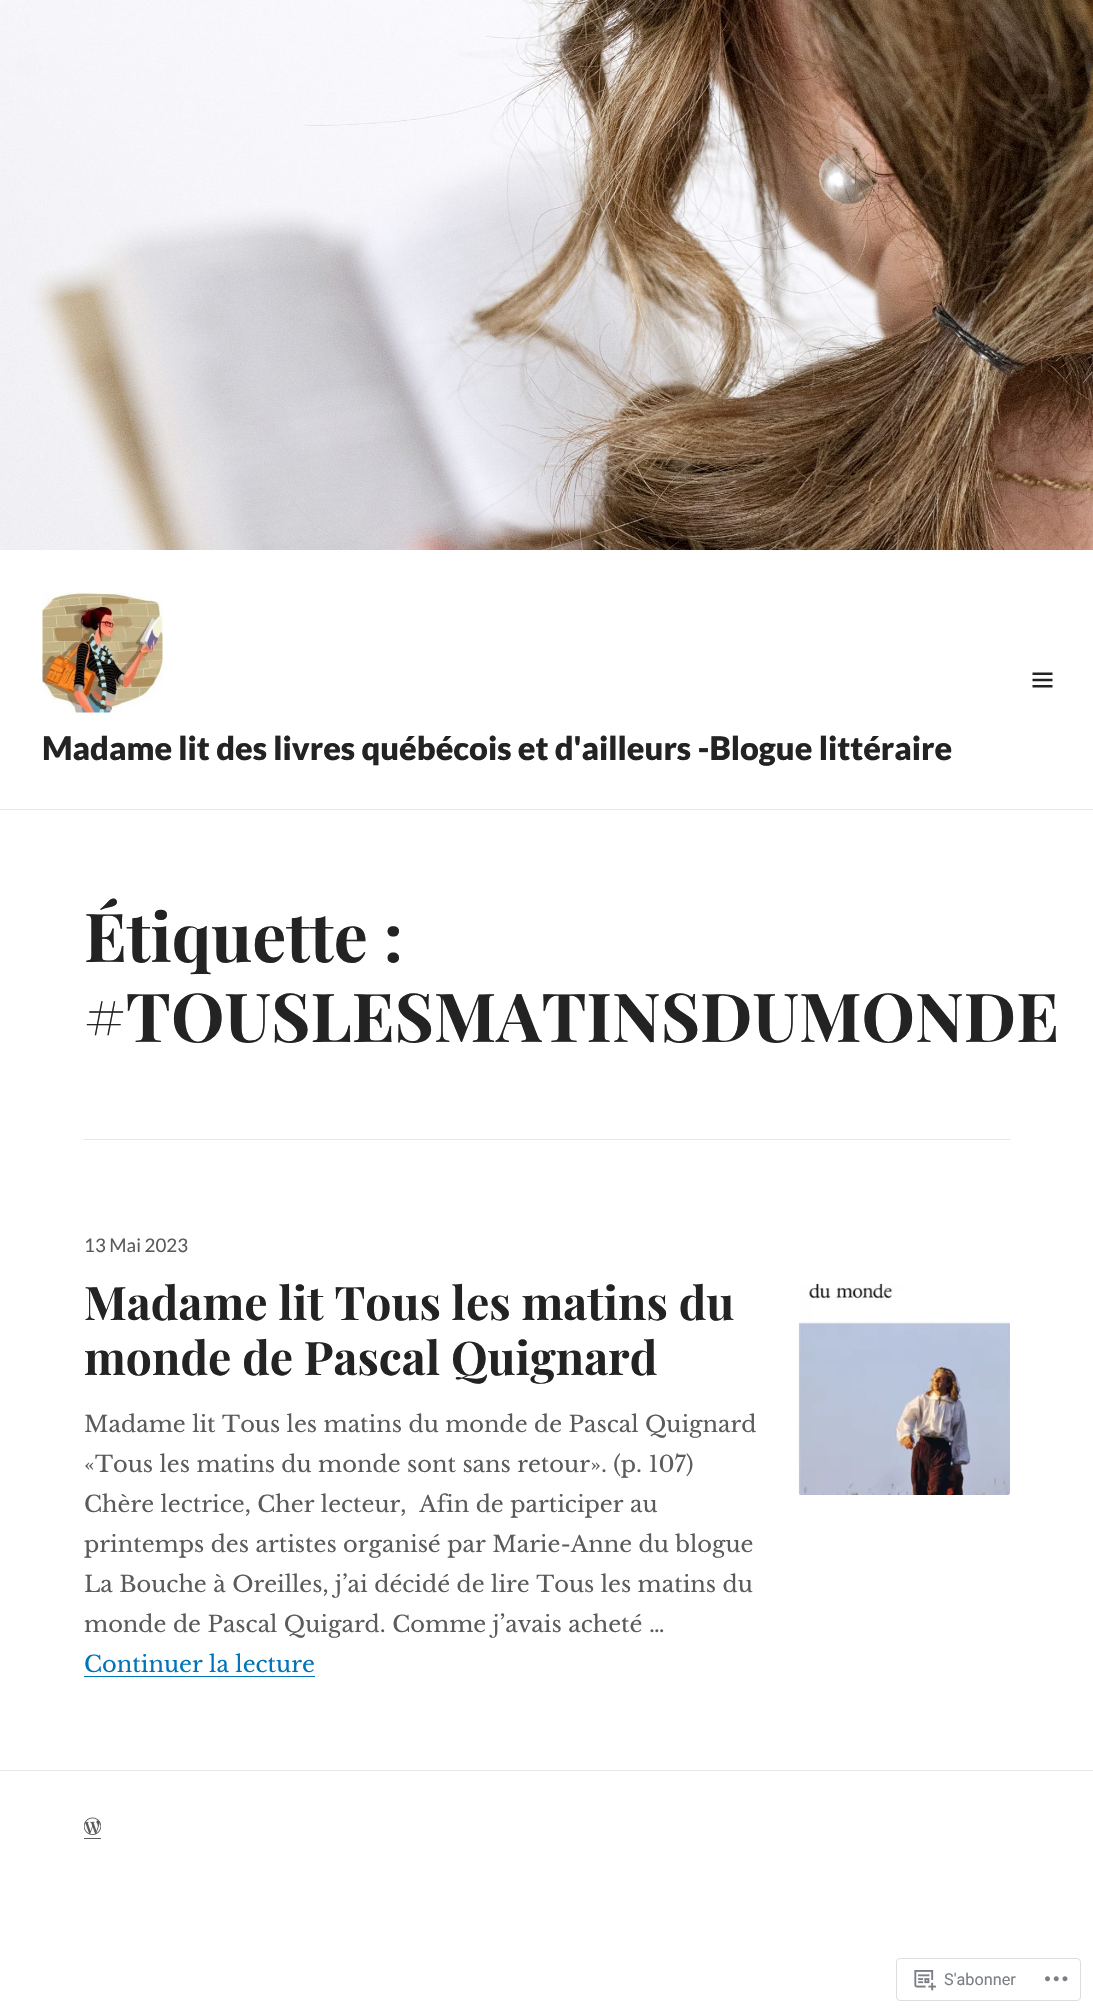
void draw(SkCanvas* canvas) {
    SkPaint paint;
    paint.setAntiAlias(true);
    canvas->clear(0xFFFFFFFF);
    canvas->drawImageRect(SkImages::DeferredFromEncodedData(SkData::MakeFromFileName("img1.png")), SkRect::MakeXYWH(0, 0, 1093, 550), SkSamplingOptions());
    paint.setColor(0xFFE6E6E6);
    canvas->drawRect(SkRect::MakeXYWH(0, 809, 1093, 1), paint);
    canvas->drawImageRect(SkImages::DeferredFromEncodedData(SkData::MakeFromFileName("img2.png")), SkRect::MakeXYWH(1032, 672, 21, 16), SkSamplingOptions());
    canvas->drawImageRect(SkImages::DeferredFromEncodedData(SkData::MakeFromFileName("img3.png")), SkRect::MakeXYWH(42, 592, 121, 121), SkSamplingOptions());
    SkFont font1(fontMgr->matchFamilyStyle("Lato", SkFontStyle(900, SkFontStyle::kNormal_Width, SkFontStyle::kUpright_Slant)), 32.5f);
    font1.setSubpixel(true);
    paint.setColor(0xFF232323);
    canvas->drawString("Madame lit des livres québécois et d'ailleurs -Blogue littéraire", 42, 760, font1, paint);
    paint.setColor(0xFFE6E6E6);
    canvas->drawRect(SkRect::MakeXYWH(84, 1139, 926, 1), paint);
    SkFont font2(fontMgr->matchFamilyStyle("Playfair Display", SkFontStyle::Bold()), 67.5f);
    font2.setSubpixel(true);
    paint.setColor(0xFF232323);
    canvas->drawString("Étiquette :", 84, 962, font2, paint);
    canvas->drawString("#TOUSLESMATINSDUMONDE", 84, 1042, font2, paint);
    SkFont font3(fontMgr->matchFamilyStyle("Lato", SkFontStyle::Normal()), 18.75f);
    font3.setSubpixel(true);
    paint.setColor(0xFF5B5B5B);
    canvas->drawString("13 Mai 2023", 84, 1252, font3, paint);
    SkFont font4(fontMgr->matchFamilyStyle("Playfair Display", SkFontStyle::Bold()), 46.25f);
    font4.setSubpixel(true);
    paint.setColor(0xFF232323);
    canvas->drawString("Madame lit Tous les matins du", 84, 1320, font4, paint);
    canvas->drawString("monde de Pascal Quignard", 84, 1375, font4, paint);
    canvas->drawImageRect(SkImages::DeferredFromEncodedData(SkData::MakeFromFileName("img4.png")), SkRect::MakeXYWH(798, 1283, 212, 212), SkSamplingOptions());
    SkFont font5(fontMgr->matchFamilyStyle("Libre Baskerville", SkFontStyle::Normal()), 22.5f);
    font5.setSubpixel(true);
    paint.setColor(0xFF5B5B5B);
    canvas->drawString("Madame lit Tous les matins du monde de Pascal Quignard", 84, 1432, font5, paint);
    canvas->drawString("«Tous les matins du monde sont sans retour». (p. 107)", 84, 1472, font5, paint);
    canvas->drawString("Chère lectrice, Cher lecteur,  Afin de participer au", 84, 1512, font5, paint);
    canvas->drawString("printemps des artistes organisé par Marie-Anne du blogue", 84, 1552, font5, paint);
    canvas->drawString("La Bouche à Oreilles, j’ai décidé de lire Tous les matins du", 84, 1592, font5, paint);
    canvas->drawString("monde de Pascal Quigard. Comme j’avais acheté …", 84, 1632, font5, paint);
    paint.setColor(0xFF0074B8);
    canvas->drawString("Continuer la lecture", 84, 1672, font5, paint);
    canvas->drawRect(SkRect::MakeXYWH(84, 1676, 231, 1), paint);
    paint.setColor(0xFFE6E6E6);
    canvas->drawRect(SkRect::MakeXYWH(0, 1770, 1093, 1), paint);
    canvas->drawImageRect(SkImages::DeferredFromEncodedData(SkData::MakeFromFileName("img5.png")), SkRect::MakeXYWH(84, 1817, 17, 18), SkSamplingOptions());
    paint.setColor(0xFF5B5B5B);
    canvas->drawRect(SkRect::MakeXYWH(84, 1838, 17, 1), paint);
    paint.setStyle(SkPaint::kStroke_Style);
    paint.setStrokeWidth(1);
    paint.setColor(0xFFDDDDDF);
    canvas->drawRoundRect(SkRect::MakeXYWH(896.5f, 1958.5f, 184, 42), 3.5f, 3.5f, paint);
    canvas->drawImageRect(SkImages::DeferredFromEncodedData(SkData::MakeFromFileName("img6.png")), SkRect::MakeXYWH(914, 1970, 22, 21), SkSamplingOptions());
    SkFont font6(fontMgr->matchFamilyStyle("Roboto", SkFontStyle::Normal()), 16.25f);
    font6.setSubpixel(true);
    paint.setStyle(SkPaint::kFill_Style);
    paint.setColor(0xFF7B7F85);
    canvas->drawString("S'abonner", 944, 1985, font6, paint);
    canvas->drawImageRect(SkImages::DeferredFromEncodedData(SkData::MakeFromFileName("img7.png")), SkRect::MakeXYWH(1045, 1976, 23, 6), SkSamplingOptions());
}
